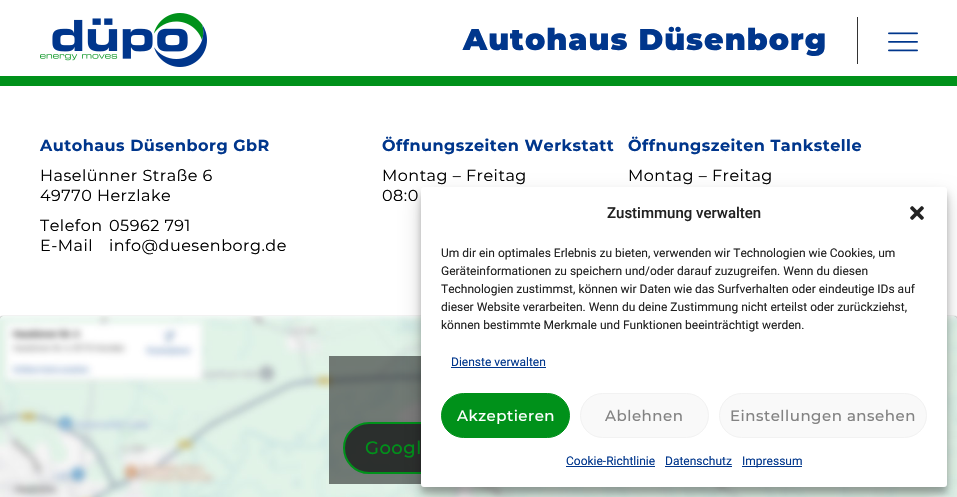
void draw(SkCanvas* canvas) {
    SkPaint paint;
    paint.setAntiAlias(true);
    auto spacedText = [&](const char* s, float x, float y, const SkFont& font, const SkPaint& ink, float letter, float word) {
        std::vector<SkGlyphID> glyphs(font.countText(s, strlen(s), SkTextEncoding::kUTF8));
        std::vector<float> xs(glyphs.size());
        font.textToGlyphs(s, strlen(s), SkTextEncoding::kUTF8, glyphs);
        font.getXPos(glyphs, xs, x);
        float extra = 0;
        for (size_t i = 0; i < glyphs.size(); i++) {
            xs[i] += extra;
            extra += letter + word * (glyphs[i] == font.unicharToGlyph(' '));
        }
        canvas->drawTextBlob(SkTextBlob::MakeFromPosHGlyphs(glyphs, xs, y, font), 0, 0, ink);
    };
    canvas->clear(0xFFFFFFFF);
    canvas->drawImageRect(SkImages::DeferredFromEncodedData(SkData::MakeFromFileName("img1.png")), SkRect::MakeXYWH(40, 13, 167, 54), SkSamplingOptions());
    SkFont font1(fontMgr->matchFamilyStyle("Montserrat", SkFontStyle(900, SkFontStyle::kNormal_Width, SkFontStyle::kUpright_Slant)), 30);
    font1.setSubpixel(true);
    paint.setColor(0xFF00368C);
    spacedText("Autohaus Düsenborg", 463, 50, font1, paint, 1, 0);
    paint.setColor(0xFF333333);
    canvas->drawRect(SkRect::MakeXYWH(857, 17, 1, 47), paint);
    canvas->drawImageRect(SkImages::DeferredFromEncodedData(SkData::MakeFromFileName("img2.png")), SkRect::MakeXYWH(888, 32, 30, 20), SkSamplingOptions());
    paint.setColor(0xFF00911A);
    canvas->drawRect(SkRect::MakeXYWH(0, 76, 957, 10), paint);
    SkFont font2(fontMgr->matchFamilyStyle("Montserrat", SkFontStyle::Bold()), 16);
    font2.setSubpixel(true);
    paint.setColor(0xFF00368C);
    spacedText("Autohaus Düsenborg GbR", 40, 151, font2, paint, 0.5f, 0);
    SkFont font3(fontMgr->matchFamilyStyle("Montserrat", SkFontStyle::Normal()), 16);
    font3.setSubpixel(true);
    paint.setColor(0xFF000000);
    spacedText("Haselünner Straße 6", 40, 181, font3, paint, 0.5f, 0);
    spacedText("49770 Herzlake", 40, 201, font3, paint, 0.5f, 0);
    spacedText("Telefon", 40, 231, font3, paint, 0.5f, 0);
    spacedText("E-Mail", 40, 251, font3, paint, 0.5f, 0);
    spacedText("05962 791", 109, 231, font3, paint, 0.5f, 0);
    spacedText("info@duesenborg.de", 109, 251, font3, paint, 0.5f, 0);
    paint.setColor(0xFF00368C);
    spacedText("Öffnungszeiten Werkstatt", 382, 151, font2, paint, 0.5f, 0);
    paint.setColor(0xFF000000);
    spacedText("Montag – Freitag", 382, 181, font3, paint, 0.5f, 0);
    spacedText("08:0", 382, 201, font3, paint, 0.5f, 0);
    paint.setColor(0xFF00368C);
    spacedText("Öffnungszeiten Tankstelle", 628, 151, font2, paint, 0.5f, 0);
    paint.setColor(0xFF000000);
    spacedText("Montag – Freitag", 628, 181, font3, paint, 0.5f, 0);
    canvas->save();
    canvas->clipRect(SkRect::MakeXYWH(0, 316, 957, 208));
    paint.setColor(0x26000000);
    paint.setMaskFilter(SkMaskFilter::MakeBlur(kNormal_SkBlurStyle, 5));
    canvas->drawRoundRect(SkRect::MakeXYWH(0, 317, 957, 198), 3, 3, paint);
    paint.setMaskFilter(nullptr);
    canvas->restore();
    paint.setColor(0x80000000);
    paint.setMaskFilter(SkMaskFilter::MakeBlur(kNormal_SkBlurStyle, 0.5f));
    canvas->drawRoundRect(SkRect::MakeXYWH(0, 316, 957, 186), 3, 3, paint);
    paint.setMaskFilter(nullptr);
    canvas->drawImageRect(SkImages::DeferredFromEncodedData(SkData::MakeFromFileName("img3.png")), SkRect::MakeXYWH(0, 316, 957, 181), SkSamplingOptions());
    canvas->drawRect(SkRect::MakeXYWH(329, 356, 92, 128), paint);
    paint.setColor(0x9C000000);
    canvas->drawRoundRect(SkRect::MakeXYWH(344, 423, 269, 50), 25, 25, paint);
    paint.setStyle(SkPaint::kStroke_Style);
    paint.setStrokeWidth(2);
    paint.setColor(0xFF00911A);
    canvas->drawRoundRect(SkRect::MakeXYWH(344, 423, 269, 50), 25, 25, paint);
    SkFont font4(fontMgr->matchFamilyStyle("Montserrat", SkFontStyle(500, SkFontStyle::kNormal_Width, SkFontStyle::kUpright_Slant)), 18);
    font4.setSubpixel(true);
    paint.setStyle(SkPaint::kFill_Style);
    spacedText("Googl", 365, 454, font4, paint, 0.5f, 0);
    paint.setColor(0x3B000000);
    paint.setMaskFilter(SkMaskFilter::MakeBlur(kNormal_SkBlurStyle, 3));
    canvas->drawRoundRect(SkRect::MakeXYWH(421, 193, 526, 300), 3, 3, paint);
    paint.setMaskFilter(nullptr);
    paint.setColor(0x30000000);
    paint.setMaskFilter(SkMaskFilter::MakeBlur(kNormal_SkBlurStyle, 10));
    canvas->drawRoundRect(SkRect::MakeXYWH(421, 197, 526, 300), 3, 3, paint);
    paint.setMaskFilter(nullptr);
    paint.setColor(0xFFFFFFFF);
    canvas->drawRoundRect(SkRect::MakeXYWH(421, 187, 526, 300), 3, 3, paint);
    SkFont font5(fontMgr->matchFamilyStyle("Roboto", SkFontStyle(500, SkFontStyle::kNormal_Width, SkFontStyle::kUpright_Slant)), 15);
    font5.setSubpixel(true);
    paint.setColor(0xFF222222);
    canvas->drawString("Zustimmung verwalten", 607, 218, font5, paint);
    canvas->drawImageRect(SkImages::DeferredFromEncodedData(SkData::MakeFromFileName("img4.png")), SkRect::MakeXYWH(910, 206, 14, 14), SkSamplingOptions());
    SkFont font6(fontMgr->matchFamilyStyle("Roboto", SkFontStyle::Normal()), 12);
    font6.setSubpixel(true);
    canvas->drawString("Um dir ein optimales Erlebnis zu bieten, verwenden wir Technologien wie Cookies, um", 441, 257, font6, paint);
    canvas->drawString("Geräteinformationen zu speichern und/oder darauf zuzugreifen. Wenn du diesen", 441, 275, font6, paint);
    canvas->drawString("Technologien zustimmst, können wir Daten wie das Surfverhalten oder eindeutige IDs auf", 441, 293, font6, paint);
    canvas->drawString("dieser Website verarbeiten. Wenn du deine Zustimmung nicht erteilst oder zurückziehst,", 441, 311, font6, paint);
    canvas->drawString("können bestimmte Merkmale und Funktionen beeinträchtigt werden.", 441, 329, font6, paint);
    paint.setColor(0xFF00368C);
    canvas->drawString("Dienste verwalten", 451, 366, font6, paint);
    canvas->drawRect(SkRect::MakeXYWH(451, 367, 95, 1), paint);
    paint.setColor(0xFF00911A);
    canvas->drawRoundRect(SkRect::MakeXYWH(441.5f, 393.5f, 128, 44), 22, 22, paint);
    paint.setStyle(SkPaint::kStroke_Style);
    paint.setStrokeWidth(1);
    canvas->drawRoundRect(SkRect::MakeXYWH(441.5f, 393.5f, 128, 44), 22, 22, paint);
    SkFont font7(fontMgr->matchFamilyStyle("Montserrat", SkFontStyle(500, SkFontStyle::kNormal_Width, SkFontStyle::kUpright_Slant)), 15);
    font7.setSubpixel(true);
    paint.setStyle(SkPaint::kFill_Style);
    paint.setColor(0xFFFFFFFF);
    spacedText("Akzeptieren", 457, 421, font7, paint, 0.5f, 0);
    paint.setColor(0xFFF9F9F9);
    canvas->drawRoundRect(SkRect::MakeXYWH(580.5f, 393.5f, 128, 44), 22, 22, paint);
    paint.setStyle(SkPaint::kStroke_Style);
    paint.setColor(0xFFF2F2F2);
    canvas->drawRoundRect(SkRect::MakeXYWH(580.5f, 393.5f, 128, 44), 22, 22, paint);
    paint.setStyle(SkPaint::kFill_Style);
    paint.setColor(0xFF838383);
    spacedText("Ablehnen", 605, 421, font7, paint, 0.5f, 0);
    paint.setColor(0xFFF9F9F9);
    canvas->drawRoundRect(SkRect::MakeXYWH(719.5f, 393.5f, 207, 44), 22, 22, paint);
    paint.setStyle(SkPaint::kStroke_Style);
    paint.setColor(0xFFF2F2F2);
    canvas->drawRoundRect(SkRect::MakeXYWH(719.5f, 393.5f, 207, 44), 22, 22, paint);
    paint.setStyle(SkPaint::kFill_Style);
    paint.setColor(0xFF838383);
    spacedText("Einstellungen ansehen", 730, 421, font7, paint, 0.5f, 0);
    paint.setColor(0xFF00368C);
    canvas->drawString("Cookie-Richtlinie", 566, 465, font6, paint);
    canvas->drawRect(SkRect::MakeXYWH(566, 466, 89, 1), paint);
    canvas->drawString("Datenschutz", 665, 465, font6, paint);
    canvas->drawRect(SkRect::MakeXYWH(665, 466, 67, 1), paint);
    canvas->drawRect(SkRect::MakeXYWH(742, 466, 60, 1), paint);
    canvas->drawString("Impressum", 742, 465, font6, paint);
}
